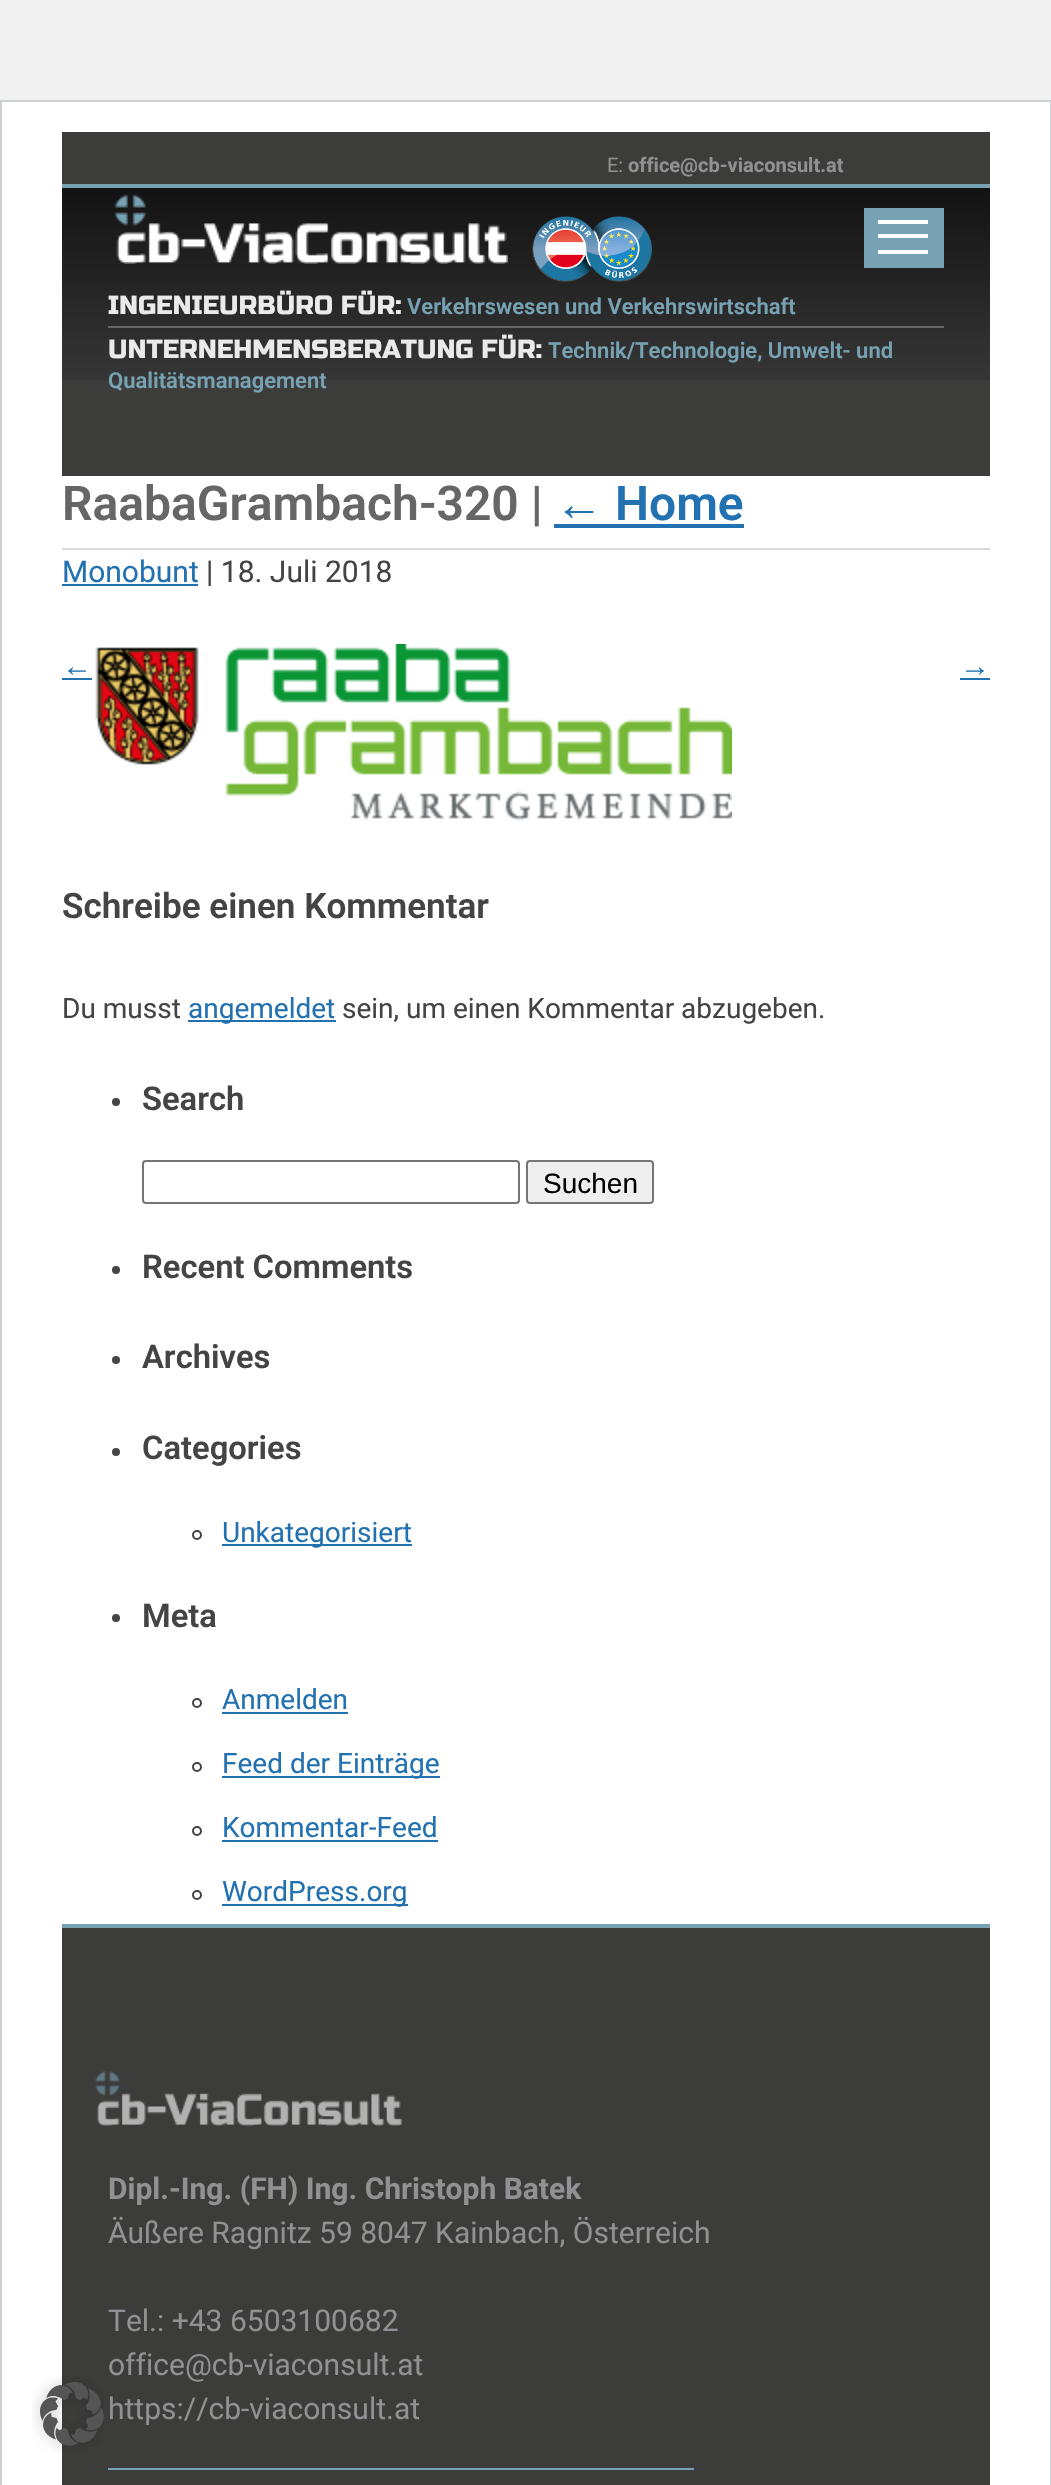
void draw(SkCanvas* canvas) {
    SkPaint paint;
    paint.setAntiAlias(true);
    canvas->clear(0xFFF1F1F1);
    paint.setColor(0xFFFFFFFF);
    canvas->drawRect(SkRect::MakeXYWH(1, 101, 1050, 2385), paint);
    paint.setStyle(SkPaint::kStroke_Style);
    paint.setStrokeWidth(2);
    paint.setColor(0xFFCCD0D4);
    canvas->drawRect(SkRect::MakeXYWH(1, 101, 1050, 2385), paint);
    paint.setStyle(SkPaint::kFill_Style);
    paint.setColor(0xFF3C3C3B);
    canvas->drawRect(SkRect::MakeXYWH(62, 132, 928, 52), paint);
    SkFont font1(fontMgr->matchFamilyStyle("Roboto", SkFontStyle::Normal()), 20);
    font1.setSubpixel(true);
    paint.setColor(0xFF919092);
    canvas->drawString("E:", 607, 172, font1, paint);
    SkFont font2(fontMgr->matchFamilyStyle("Roboto", SkFontStyle::Bold()), 20);
    font2.setSubpixel(true);
    canvas->drawString("office@cb-viaconsult.at", 628, 172, font2, paint);
    paint.setColor(0xFF3C3C3B);
    canvas->drawRect(SkRect::MakeXYWH(62, 380, 928, 96), paint);
    {
        const SkColor colors[] = {0xFF141313, 0xFF373636};
        const float stops[] = {0, 1};
        const SkPoint ends[] = {{526, 188}, {526, 380}};
        paint.setShader(SkGradientShader::MakeLinear(ends, colors, stops, 2, SkTileMode::kClamp));
        paint.setAlpha(255);
    }
    canvas->drawRect(SkRect::MakeXYWH(62, 188, 928, 192), paint);
    paint.setShader(nullptr);
    paint.setColor(0xFF77A2B4);
    canvas->drawRect(SkRect::MakeXYWH(864, 208, 80, 60), paint);
    paint.setColor(0xFFFFFFFF);
    canvas->drawRect(SkRect::MakeXYWH(878, 220, 50, 4), paint);
    canvas->drawRect(SkRect::MakeXYWH(878, 234, 50, 4), paint);
    canvas->drawRect(SkRect::MakeXYWH(878, 250, 50, 4), paint);
    paint.setColor(0xFF77A2B4);
    canvas->drawRect(SkRect::MakeXYWH(62, 184, 928, 4), paint);
    canvas->drawImageRect(SkImages::DeferredFromEncodedData(SkData::MakeFromFileName("img1.png")), SkRect::MakeXYWH(114, 194, 394, 70), SkSamplingOptions());
    canvas->drawImageRect(SkImages::DeferredFromEncodedData(SkData::MakeFromFileName("img2.png")), SkRect::MakeXYWH(532, 216, 120, 66), SkSamplingOptions());
    SkFont font3(fontMgr->matchFamilyStyle("Russo One", SkFontStyle::Normal()), 26);
    font3.setSubpixel(true);
    paint.setColor(0xFFEAEAEA);
    canvas->drawString("INGENIEURBÜRO FÜR:", 108, 314, font3, paint);
    SkFont font4(fontMgr->matchFamilyStyle("Roboto", SkFontStyle(600, SkFontStyle::kNormal_Width, SkFontStyle::kUpright_Slant)), 22);
    font4.setSubpixel(true);
    paint.setColor(0xFF77A2B4);
    canvas->drawString("Verkehrswesen und Verkehrswirtschaft", 407, 314, font4, paint);
    paint.setColor(0xFF676666);
    canvas->drawRect(SkRect::MakeXYWH(108, 326, 836, 2), paint);
    paint.setColor(0xFFEAEAEA);
    canvas->drawString("UNTERNEHMENSBERATUNG FÜR:", 108, 358, font3, paint);
    paint.setColor(0xFF77A2B4);
    canvas->drawString("Technik/Technologie, Umwelt- und", 548, 358, font4, paint);
    canvas->drawString("Qualitätsmanagement", 108, 388, font4, paint);
    paint.setColor(0xFFDADADA);
    canvas->drawRect(SkRect::MakeXYWH(62, 548, 928, 2), paint);
    SkFont font5(fontMgr->matchFamilyStyle("Roboto", SkFontStyle(600, SkFontStyle::kNormal_Width, SkFontStyle::kUpright_Slant)), 48);
    font5.setSubpixel(true);
    paint.setColor(0xFF666666);
    canvas->drawString("RaabaGrambach-320 |", 62, 520, font5, paint);
    SkFont font6(fontMgr->matchFamilyStyle("Liberation Sans", SkFontStyle::Bold()), 48);
    font6.setSubpixel(true);
    paint.setColor(0xFF2271B1);
    canvas->drawString("←", 555, 520, font6, paint);
    canvas->drawRect(SkRect::MakeXYWH(554, 524, 190, 4), paint);
    canvas->drawString("Home", 615, 520, font5, paint);
    SkFont font7(fontMgr->matchFamilyStyle("Roboto", SkFontStyle::Normal()), 30);
    font7.setSubpixel(true);
    canvas->drawString("Monobunt", 62, 582, font7, paint);
    canvas->drawRect(SkRect::MakeXYWH(62, 584, 136, 2), paint);
    paint.setColor(0xFF444444);
    canvas->drawString("| 18. Juli 2018", 206, 582, font7, paint);
    canvas->drawImageRect(SkImages::DeferredFromEncodedData(SkData::MakeFromFileName("img3.png")), SkRect::MakeXYWH(95, 644, 637, 177), SkSamplingOptions());
    SkFont font8(fontMgr->matchFamilyStyle("Liberation Sans", SkFontStyle::Normal()), 30);
    font8.setSubpixel(true);
    paint.setColor(0xFF2271B1);
    canvas->drawString("←", 62, 676, font8, paint);
    canvas->drawRect(SkRect::MakeXYWH(62, 678, 30, 2), paint);
    canvas->drawString("→", 960, 676, font8, paint);
    canvas->drawRect(SkRect::MakeXYWH(960, 678, 30, 2), paint);
    SkFont font9(fontMgr->matchFamilyStyle("Roboto", SkFontStyle(600, SkFontStyle::kNormal_Width, SkFontStyle::kUpright_Slant)), 35.1f);
    font9.setSubpixel(true);
    paint.setColor(0xFF444444);
    canvas->drawString("Schreibe einen Kommentar", 62, 918, font9, paint);
    SkFont font10(fontMgr->matchFamilyStyle("Roboto", SkFontStyle::Normal()), 28);
    font10.setSubpixel(true);
    canvas->drawString("Du musst", 62, 1018, font10, paint);
    paint.setColor(0xFF2271B1);
    canvas->drawRect(SkRect::MakeXYWH(188, 1020, 148, 2), paint);
    canvas->drawString("angemeldet", 188, 1018, font10, paint);
    paint.setColor(0xFF444444);
    canvas->drawString("sein, um einen Kommentar abzugeben.", 342, 1018, font10, paint);
    canvas->drawCircle(116, 1102, 4, paint);
    SkFont font11(fontMgr->matchFamilyStyle("Roboto", SkFontStyle(600, SkFontStyle::kNormal_Width, SkFontStyle::kUpright_Slant)), 32.75f);
    font11.setSubpixel(true);
    canvas->drawString("Search", 142, 1110, font11, paint);
    paint.setStyle(SkPaint::kStroke_Style);
    paint.setColor(0xFF767676);
    canvas->drawRoundRect(SkRect::MakeXYWH(143, 1161, 376, 42), 3, 3, paint);
    paint.setStyle(SkPaint::kFill_Style);
    paint.setColor(0xFFEFEFEF);
    canvas->drawRoundRect(SkRect::MakeXYWH(527, 1161, 126, 42), 3, 3, paint);
    paint.setStyle(SkPaint::kStroke_Style);
    paint.setColor(0xFF767676);
    canvas->drawRoundRect(SkRect::MakeXYWH(527, 1161, 126, 42), 3, 3, paint);
    SkFont font12(fontMgr->matchFamilyStyle("Liberation Sans", SkFontStyle::Normal()), 28);
    font12.setSubpixel(true);
    paint.setStyle(SkPaint::kFill_Style);
    paint.setColor(0xFF000000);
    canvas->drawString("Suchen", 543, 1193, font12, paint);
    paint.setColor(0xFF444444);
    canvas->drawCircle(116, 1270, 4, paint);
    canvas->drawString("Recent Comments", 142, 1278, font11, paint);
    canvas->drawCircle(116, 1360, 4, paint);
    canvas->drawString("Archives", 142, 1368, font11, paint);
    canvas->drawCircle(116, 1452, 4, paint);
    canvas->drawString("Categories", 142, 1459, font11, paint);
    paint.setStyle(SkPaint::kStroke_Style);
    canvas->drawCircle(197, 1535, 4, paint);
    paint.setStyle(SkPaint::kFill_Style);
    paint.setColor(0xFF2271B1);
    canvas->drawRect(SkRect::MakeXYWH(222, 1544, 190, 2), paint);
    canvas->drawString("Unkategorisiert", 222, 1542, font10, paint);
    paint.setColor(0xFF444444);
    canvas->drawCircle(116, 1618, 4, paint);
    canvas->drawString("Meta", 142, 1627, font11, paint);
    paint.setStyle(SkPaint::kStroke_Style);
    canvas->drawCircle(197, 1703, 4, paint);
    paint.setStyle(SkPaint::kFill_Style);
    paint.setColor(0xFF2271B1);
    canvas->drawString("Anmelden", 222, 1709, font10, paint);
    canvas->drawRect(SkRect::MakeXYWH(222, 1712, 126, 2), paint);
    paint.setStyle(SkPaint::kStroke_Style);
    paint.setColor(0xFF444444);
    canvas->drawCircle(197, 1767, 4, paint);
    paint.setStyle(SkPaint::kFill_Style);
    paint.setColor(0xFF2271B1);
    canvas->drawRect(SkRect::MakeXYWH(222, 1776, 218, 2), paint);
    canvas->drawString("Feed der Einträge", 222, 1773, font10, paint);
    paint.setStyle(SkPaint::kStroke_Style);
    paint.setColor(0xFF444444);
    canvas->drawCircle(197, 1831, 4, paint);
    paint.setStyle(SkPaint::kFill_Style);
    paint.setColor(0xFF2271B1);
    canvas->drawString("Kommentar-Feed", 222, 1837, font10, paint);
    canvas->drawRect(SkRect::MakeXYWH(222, 1840, 216, 2), paint);
    paint.setStyle(SkPaint::kStroke_Style);
    paint.setColor(0xFF444444);
    canvas->drawCircle(197, 1895, 4, paint);
    paint.setStyle(SkPaint::kFill_Style);
    paint.setColor(0xFF2271B1);
    canvas->drawRect(SkRect::MakeXYWH(222, 1904, 186, 2), paint);
    canvas->drawString("WordPress.org", 222, 1901, font10, paint);
    paint.setColor(0xFF3C3C3B);
    canvas->drawRect(SkRect::MakeXYWH(62, 1928, 928, 557), paint);
    canvas->drawImageRect(SkImages::DeferredFromEncodedData(SkData::MakeFromFileName("img4.png")), SkRect::MakeXYWH(32, 2375, 72, 78), SkSamplingOptions());
    paint.setColor(0xFF77A2B4);
    canvas->drawRect(SkRect::MakeXYWH(62, 1924, 928, 4), paint);
    canvas->drawImageRect(SkImages::DeferredFromEncodedData(SkData::MakeFromFileName("img5.png")), SkRect::MakeXYWH(95, 2071, 307, 55), SkSamplingOptions());
    SkFont font13(fontMgr->matchFamilyStyle("Roboto", SkFontStyle::Bold()), 30);
    font13.setSubpixel(true);
    paint.setColor(0xFF919092);
    canvas->drawString("Dipl.-Ing. (FH) Ing. Christoph Batek", 108, 2199, font13, paint);
    canvas->drawString("Äußere Ragnitz 59 8047 Kainbach, Österreich", 108, 2243, font7, paint);
    canvas->drawString("Tel.: +43 6503100682", 108, 2331, font7, paint);
    canvas->drawString("office@cb-viaconsult.at", 108, 2375, font7, paint);
    canvas->drawString("https://cb-viaconsult.at", 108, 2419, font7, paint);
    paint.setColor(0xFF77A2B4);
    canvas->drawRect(SkRect::MakeXYWH(108, 2468, 586, 2), paint);
}
